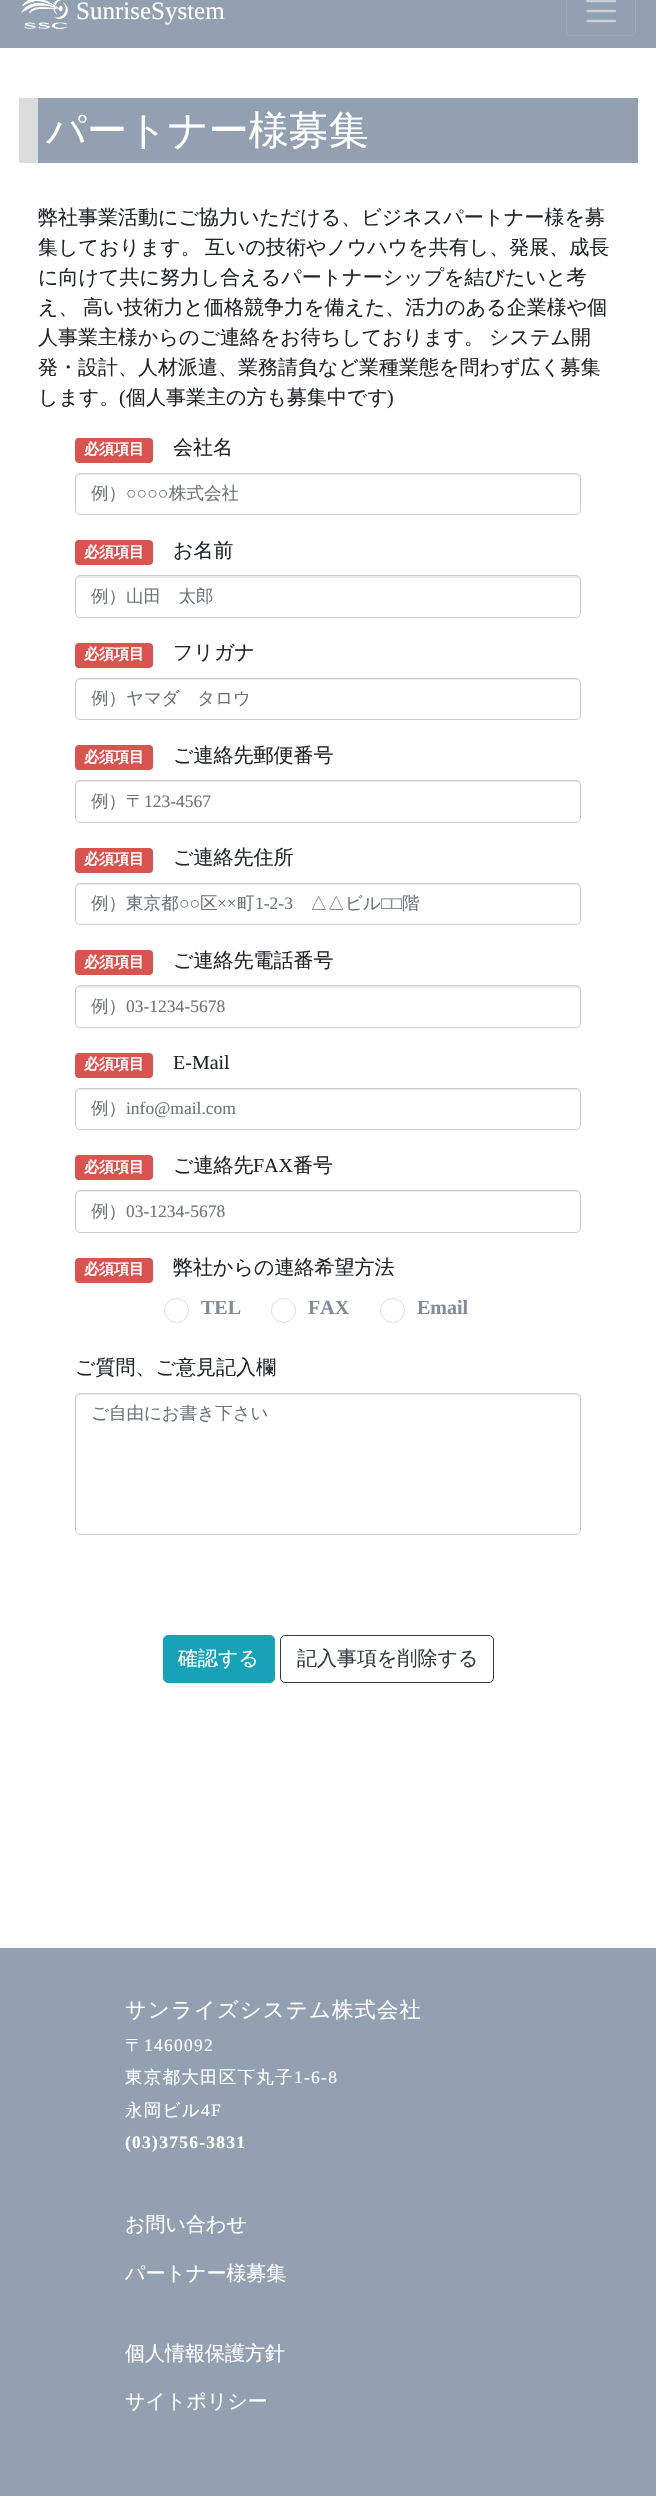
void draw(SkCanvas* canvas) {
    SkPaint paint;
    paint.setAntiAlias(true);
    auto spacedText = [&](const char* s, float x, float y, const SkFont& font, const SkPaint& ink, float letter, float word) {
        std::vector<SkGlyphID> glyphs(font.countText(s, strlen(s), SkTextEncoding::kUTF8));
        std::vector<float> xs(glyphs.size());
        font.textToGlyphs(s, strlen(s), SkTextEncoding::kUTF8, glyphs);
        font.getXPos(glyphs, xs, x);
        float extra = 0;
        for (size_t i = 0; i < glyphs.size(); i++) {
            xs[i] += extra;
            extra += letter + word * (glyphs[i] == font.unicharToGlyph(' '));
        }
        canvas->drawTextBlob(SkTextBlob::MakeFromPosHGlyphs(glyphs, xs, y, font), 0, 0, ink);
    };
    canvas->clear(0xFFFFFFFF);
    paint.setColor(0xFF92A0B1);
    canvas->drawRect(SkRect::MakeXYWH(0, 0, 656, 48), paint);
    canvas->drawImageRect(SkImages::DeferredFromEncodedData(SkData::MakeFromFileName("img1.png")), SkRect::MakeXYWH(21, 0, 47, 30), SkSamplingOptions());
    SkFont font1(fontMgr->matchFamilyStyle("Liberation Serif", SkFontStyle::Normal()), 25);
    font1.setSubpixel(true);
    paint.setColor(0xFFFFFFFF);
    canvas->drawString("SunriseSystem", 76, 19, font1, paint);
    paint.setStyle(SkPaint::kStroke_Style);
    paint.setStrokeWidth(1);
    paint.setColor(0xFF9DAAB9);
    canvas->drawRoundRect(SkRect::MakeXYWH(566.5f, -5.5f, 69, 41), 4.5f, 4.5f, paint);
    paint.setStrokeWidth(2.5f);
    paint.setStrokeCap(SkPaint::kRound_Cap);
    paint.setColor(0xFFC9D0D8);
    canvas->drawPath(SkPathBuilder().moveTo(587.5f, 1).lineTo(615, 1).moveTo(587.5f, 11).lineTo(615, 11).moveTo(587.5f, 21).lineTo(615, 21).detach(), paint);
    paint.setStyle(SkPaint::kFill_Style);
    paint.setColor(0xFF92A0B1);
    canvas->drawRect(SkRect::MakeXYWH(38, 98, 600, 65), paint);
    paint.setColor(0xFFDCDCDC);
    canvas->drawRect(SkRect::MakeXYWH(19, 98, 19, 65), paint);
    SkFont font2(fontMgr->matchFamilyStyle("WenQuanYi Zen Hei", SkFontStyle(500, SkFontStyle::kNormal_Width, SkFontStyle::kUpright_Slant)), 40);
    font2.setSubpixel(true);
    paint.setColor(0xFFFFFFFF);
    canvas->drawString("パートナー様募集", 46, 144, font2, paint);
    SkFont font3(fontMgr->matchFamilyStyle("WenQuanYi Zen Hei", SkFontStyle(500, SkFontStyle::kNormal_Width, SkFontStyle::kUpright_Slant)), 20);
    font3.setSubpixel(true);
    paint.setColor(0xFF212529);
    canvas->drawString("弊社事業活動にご協力いただける、ビジネスパートナー様を募", 38, 224, font3, paint);
    canvas->drawString("集しております。", 38, 254, font3, paint);
    canvas->drawString("互いの技術やノウハウを共有し、発展、成長", 205, 254, font3, paint);
    canvas->drawString("に向けて共に努力し合えるパートナーシップを結びたいと考", 38, 284, font3, paint);
    canvas->drawString("え、", 38, 314, font3, paint);
    canvas->drawString("高い技術力と価格競争力を備えた、活力のある企業様や個", 83, 314, font3, paint);
    canvas->drawString("人事業主様からのご連絡をお待ちしております。", 38, 344, font3, paint);
    canvas->drawString("システム開", 489, 344, font3, paint);
    canvas->drawString("発・設計、人材派遣、業務請負など業種業態を問わず広く募集", 38, 374, font3, paint);
    canvas->drawString("します。", 38, 404, font3, paint);
    SkFont font4(fontMgr->matchFamilyStyle("Liberation Serif", SkFontStyle::Normal()), 20);
    font4.setSubpixel(true);
    canvas->drawString("(", 119, 404, font4, paint);
    canvas->drawString("個人事業主の方も募集中です", 126, 404, font3, paint);
    canvas->drawString(")", 387, 404, font4, paint);
    paint.setColor(0xFFD9534F);
    canvas->drawRoundRect(SkRect::MakeXYWH(75, 438, 78, 25), 4, 4, paint);
    SkFont font5(fontMgr->matchFamilyStyle("WenQuanYi Zen Hei", SkFontStyle::Bold()), 15);
    font5.setSubpixel(true);
    paint.setColor(0xFFFFFFFF);
    canvas->drawString("必須項目", 84, 454, font5, paint);
    paint.setColor(0xFF212529);
    canvas->drawString("会社名", 173, 454, font3, paint);
    paint.setColor(0xFFECECEC);
    canvas->drawPath(SkPathBuilder().moveTo(80, 475).lineTo(576, 475).cubicTo(578, 475, 580, 477, 580, 479).cubicTo(580, 476, 579, 474, 576, 474).lineTo(80, 474).cubicTo(77, 474, 76, 476, 76, 479).cubicTo(76, 477, 78, 475, 80, 475).close().detach(), paint);
    paint.setStyle(SkPaint::kStroke_Style);
    paint.setStrokeWidth(1);
    paint.setStrokeCap(SkPaint::kButt_Cap);
    paint.setColor(0xFFCCCCCC);
    canvas->drawRoundRect(SkRect::MakeXYWH(75.5f, 473.5f, 505, 41), 4.5f, 4.5f, paint);
    SkFont font6(fontMgr->matchFamilyStyle("WenQuanYi Zen Hei", SkFontStyle(500, SkFontStyle::kNormal_Width, SkFontStyle::kUpright_Slant)), 17.5f);
    font6.setSubpixel(true);
    paint.setStyle(SkPaint::kFill_Style);
    paint.setColor(0xFF6C757D);
    canvas->drawString("例）", 91, 499, font6, paint);
    SkFont font7(fontMgr->matchFamilyStyle("Liberation Serif", SkFontStyle::Normal()), 17.5f);
    font7.setSubpixel(true);
    canvas->drawString("○○○○", 126, 499, font7, paint);
    canvas->drawString("株式会社", 169, 499, font6, paint);
    paint.setColor(0xFFD9534F);
    canvas->drawRoundRect(SkRect::MakeXYWH(75, 540, 78, 25), 4, 4, paint);
    paint.setColor(0xFFFFFFFF);
    canvas->drawString("必須項目", 84, 557, font5, paint);
    paint.setColor(0xFF212529);
    canvas->drawString("お名前", 173, 557, font3, paint);
    paint.setColor(0xFFECECEC);
    canvas->drawPath(SkPathBuilder().moveTo(80, 578).lineTo(576, 578).cubicTo(578, 578, 580, 579, 580, 581).cubicTo(580, 578, 579, 576, 576, 576).lineTo(80, 576).cubicTo(77, 576, 76, 578, 76, 581).cubicTo(76, 579, 78, 578, 80, 578).close().detach(), paint);
    paint.setStyle(SkPaint::kStroke_Style);
    paint.setColor(0xFFCCCCCC);
    canvas->drawRoundRect(SkRect::MakeXYWH(75.5f, 575.5f, 505, 42), 4.5f, 4.5f, paint);
    paint.setStyle(SkPaint::kFill_Style);
    paint.setColor(0xFF6C757D);
    canvas->drawString("例）山田　太郎", 91, 602, font6, paint);
    paint.setColor(0xFFD9534F);
    canvas->drawRoundRect(SkRect::MakeXYWH(75, 643, 78, 25), 4, 4, paint);
    paint.setColor(0xFFFFFFFF);
    canvas->drawString("必須項目", 84, 659, font5, paint);
    paint.setColor(0xFF212529);
    canvas->drawString("フリガナ", 173, 659, font3, paint);
    paint.setColor(0xFFECECEC);
    canvas->drawPath(SkPathBuilder().moveTo(80, 680).lineTo(576, 680).cubicTo(578, 680, 580, 682, 580, 684).cubicTo(580, 681, 579, 679, 576, 679).lineTo(80, 679).cubicTo(77, 679, 76, 681, 76, 684).cubicTo(76, 682, 78, 680, 80, 680).close().detach(), paint);
    paint.setStyle(SkPaint::kStroke_Style);
    paint.setColor(0xFFCCCCCC);
    canvas->drawRoundRect(SkRect::MakeXYWH(75.5f, 678.5f, 505, 41), 4.5f, 4.5f, paint);
    paint.setStyle(SkPaint::kFill_Style);
    paint.setColor(0xFF6C757D);
    canvas->drawString("例）ヤマダ　タロウ", 91, 704, font6, paint);
    paint.setColor(0xFFD9534F);
    canvas->drawRoundRect(SkRect::MakeXYWH(75, 745, 78, 25), 4, 4, paint);
    paint.setColor(0xFFFFFFFF);
    canvas->drawString("必須項目", 84, 762, font5, paint);
    paint.setColor(0xFF212529);
    canvas->drawString("ご連絡先郵便番号", 173, 762, font3, paint);
    paint.setColor(0xFFECECEC);
    canvas->drawPath(SkPathBuilder().moveTo(80, 782).lineTo(576, 782).cubicTo(578, 782, 580, 784, 580, 786).cubicTo(580, 783, 579, 781, 576, 781).lineTo(80, 781).cubicTo(77, 781, 76, 783, 76, 786).cubicTo(76, 784, 78, 782, 80, 782).close().detach(), paint);
    paint.setStyle(SkPaint::kStroke_Style);
    paint.setColor(0xFFCCCCCC);
    canvas->drawRoundRect(SkRect::MakeXYWH(75.5f, 780.5f, 505, 42), 4.5f, 4.5f, paint);
    paint.setStyle(SkPaint::kFill_Style);
    paint.setColor(0xFF6C757D);
    canvas->drawString("例）〒", 91, 807, font6, paint);
    canvas->drawString("123-4567", 144, 807, font7, paint);
    paint.setColor(0xFFD9534F);
    canvas->drawRoundRect(SkRect::MakeXYWH(75, 848, 78, 25), 4, 4, paint);
    paint.setColor(0xFFFFFFFF);
    canvas->drawString("必須項目", 84, 864, font5, paint);
    paint.setColor(0xFF212529);
    canvas->drawString("ご連絡先住所", 173, 864, font3, paint);
    paint.setColor(0xFFECECEC);
    canvas->drawPath(SkPathBuilder().moveTo(80, 885).lineTo(576, 885).cubicTo(578, 885, 580, 887, 580, 889).cubicTo(580, 886, 579, 884, 576, 884).lineTo(80, 884).cubicTo(77, 884, 76, 886, 76, 889).cubicTo(76, 887, 78, 885, 80, 885).close().detach(), paint);
    paint.setStyle(SkPaint::kStroke_Style);
    paint.setColor(0xFFCCCCCC);
    canvas->drawRoundRect(SkRect::MakeXYWH(75.5f, 883.5f, 505, 41), 4.5f, 4.5f, paint);
    paint.setStyle(SkPaint::kFill_Style);
    paint.setColor(0xFF6C757D);
    canvas->drawString("例）東京都", 91, 909, font6, paint);
    canvas->drawString("○○", 179, 909, font7, paint);
    canvas->drawString("区", 200, 909, font6, paint);
    canvas->drawString("××", 217, 909, font7, paint);
    canvas->drawString("町", 237, 909, font6, paint);
    canvas->drawString("1-2-3", 255, 909, font7, paint);
    canvas->drawString("△△ビル", 310, 909, font6, paint);
    canvas->drawString("□□", 381, 909, font7, paint);
    canvas->drawString("階", 402, 909, font6, paint);
    paint.setColor(0xFFD9534F);
    canvas->drawRoundRect(SkRect::MakeXYWH(75, 950, 78, 25), 4, 4, paint);
    paint.setColor(0xFFFFFFFF);
    canvas->drawString("必須項目", 84, 967, font5, paint);
    paint.setColor(0xFF212529);
    canvas->drawString("ご連絡先電話番号", 173, 967, font3, paint);
    paint.setColor(0xFFECECEC);
    canvas->drawPath(SkPathBuilder().moveTo(80, 988).lineTo(576, 988).cubicTo(578, 988, 580, 989, 580, 991).cubicTo(580, 988, 579, 986, 576, 986).lineTo(80, 986).cubicTo(77, 986, 76, 988, 76, 991).cubicTo(76, 989, 78, 988, 80, 988).close().detach(), paint);
    paint.setStyle(SkPaint::kStroke_Style);
    paint.setColor(0xFFCCCCCC);
    canvas->drawRoundRect(SkRect::MakeXYWH(75.5f, 985.5f, 505, 42), 4.5f, 4.5f, paint);
    paint.setStyle(SkPaint::kFill_Style);
    paint.setColor(0xFF6C757D);
    canvas->drawString("例）", 91, 1012, font6, paint);
    canvas->drawString("03-1234-5678", 126, 1012, font7, paint);
    paint.setColor(0xFFD9534F);
    canvas->drawRoundRect(SkRect::MakeXYWH(75, 1053, 78, 25), 4, 4, paint);
    paint.setColor(0xFFFFFFFF);
    canvas->drawString("必須項目", 84, 1069, font5, paint);
    paint.setColor(0xFF212529);
    canvas->drawString("E-Mail", 173, 1069, font4, paint);
    paint.setColor(0xFFECECEC);
    canvas->drawPath(SkPathBuilder().moveTo(80, 1090).lineTo(576, 1090).cubicTo(578, 1090, 580, 1092, 580, 1094).cubicTo(580, 1091, 579, 1089, 576, 1089).lineTo(80, 1089).cubicTo(77, 1089, 76, 1091, 76, 1094).cubicTo(76, 1092, 78, 1090, 80, 1090).close().detach(), paint);
    paint.setStyle(SkPaint::kStroke_Style);
    paint.setColor(0xFFCCCCCC);
    canvas->drawRoundRect(SkRect::MakeXYWH(75.5f, 1088.5f, 505, 41), 4.5f, 4.5f, paint);
    paint.setStyle(SkPaint::kFill_Style);
    paint.setColor(0xFF6C757D);
    canvas->drawString("例）", 91, 1114, font6, paint);
    canvas->drawString("info@mail.com", 126, 1114, font7, paint);
    paint.setColor(0xFFD9534F);
    canvas->drawRoundRect(SkRect::MakeXYWH(75, 1155, 78, 25), 4, 4, paint);
    paint.setColor(0xFFFFFFFF);
    canvas->drawString("必須項目", 84, 1172, font5, paint);
    paint.setColor(0xFF212529);
    canvas->drawString("ご連絡先", 173, 1172, font3, paint);
    canvas->drawString("FAX", 253, 1172, font4, paint);
    canvas->drawString("番号", 293, 1172, font3, paint);
    paint.setColor(0xFFECECEC);
    canvas->drawPath(SkPathBuilder().moveTo(80, 1192).lineTo(576, 1192).cubicTo(578, 1192, 580, 1194, 580, 1196).cubicTo(580, 1193, 579, 1191, 576, 1191).lineTo(80, 1191).cubicTo(77, 1191, 76, 1193, 76, 1196).cubicTo(76, 1194, 78, 1192, 80, 1192).close().detach(), paint);
    paint.setStyle(SkPaint::kStroke_Style);
    paint.setColor(0xFFCCCCCC);
    canvas->drawRoundRect(SkRect::MakeXYWH(75.5f, 1190.5f, 505, 42), 4.5f, 4.5f, paint);
    paint.setStyle(SkPaint::kFill_Style);
    paint.setColor(0xFF6C757D);
    canvas->drawString("例）", 91, 1217, font6, paint);
    canvas->drawString("03-1234-5678", 126, 1217, font7, paint);
    paint.setColor(0xFFD9534F);
    canvas->drawRoundRect(SkRect::MakeXYWH(75, 1258, 78, 25), 4, 4, paint);
    paint.setColor(0xFFFFFFFF);
    canvas->drawString("必須項目", 84, 1274, font5, paint);
    paint.setColor(0xFF212529);
    canvas->drawString("弊社からの連絡希望方法", 173, 1274, font3, paint);
    paint.setStyle(SkPaint::kStroke_Style);
    paint.setColor(0xFFDDDDDD);
    canvas->drawCircle(176.5f, 1310.5f, 12, paint);
    SkFont font8(fontMgr->matchFamilyStyle("Liberation Serif", SkFontStyle::Bold()), 20);
    font8.setSubpixel(true);
    paint.setStyle(SkPaint::kFill_Style);
    paint.setColor(0xFF828C9A);
    canvas->drawString("TEL", 201, 1314, font8, paint);
    paint.setStyle(SkPaint::kStroke_Style);
    paint.setColor(0xFFDDDDDD);
    canvas->drawCircle(283.5f, 1310.5f, 12, paint);
    paint.setStyle(SkPaint::kFill_Style);
    paint.setColor(0xFF828C9A);
    canvas->drawString("FAX", 308, 1314, font8, paint);
    paint.setStyle(SkPaint::kStroke_Style);
    paint.setColor(0xFFDDDDDD);
    canvas->drawCircle(392.5f, 1310.5f, 12, paint);
    paint.setStyle(SkPaint::kFill_Style);
    paint.setColor(0xFF828C9A);
    canvas->drawString("Email", 417, 1314, font8, paint);
    paint.setColor(0xFF212529);
    canvas->drawString("ご質問、ご意見記入欄", 75, 1374, font3, paint);
    paint.setColor(0xFFECECEC);
    canvas->drawPath(SkPathBuilder().moveTo(80, 1395).lineTo(576, 1395).cubicTo(578, 1395, 580, 1397, 580, 1399).cubicTo(580, 1396, 579, 1394, 576, 1394).lineTo(80, 1394).cubicTo(77, 1394, 76, 1396, 76, 1399).cubicTo(76, 1397, 78, 1395, 80, 1395).close().detach(), paint);
    paint.setStyle(SkPaint::kStroke_Style);
    paint.setColor(0xFFCCCCCC);
    canvas->drawRoundRect(SkRect::MakeXYWH(75.5f, 1393.5f, 505, 141), 4.5f, 4.5f, paint);
    paint.setStyle(SkPaint::kFill_Style);
    paint.setColor(0xFF6C757D);
    canvas->drawString("ご自由にお書き下さい", 91, 1419, font6, paint);
    paint.setColor(0xFF17A2B8);
    canvas->drawRoundRect(SkRect::MakeXYWH(163.5f, 1635.5f, 111, 47), 4.5f, 4.5f, paint);
    paint.setStyle(SkPaint::kStroke_Style);
    canvas->drawRoundRect(SkRect::MakeXYWH(163.5f, 1635.5f, 111, 47), 4.5f, 4.5f, paint);
    paint.setStyle(SkPaint::kFill_Style);
    paint.setColor(0xFFFFFFFF);
    canvas->drawString("確認する", 178, 1665, font3, paint);
    paint.setStyle(SkPaint::kStroke_Style);
    paint.setColor(0xFF343A40);
    canvas->drawRoundRect(SkRect::MakeXYWH(280.5f, 1635.5f, 213, 47), 4.5f, 4.5f, paint);
    paint.setStyle(SkPaint::kFill_Style);
    canvas->drawString("記入事項を削除する", 297, 1665, font3, paint);
    paint.setColor(0xFF92A0B1);
    canvas->drawRect(SkRect::MakeXYWH(0, 1948, 656, 548), paint);
    SkFont font9(fontMgr->matchFamilyStyle("WenQuanYi Zen Hei", SkFontStyle(500, SkFontStyle::kNormal_Width, SkFontStyle::kUpright_Slant)), 21.25f);
    font9.setSubpixel(true);
    paint.setColor(0xFFFFFFFF);
    spacedText("サンライズシステム株式会社", 125, 2017, font9, paint, 1.25f, 0);
    spacedText("〒", 125, 2051, font6, paint, 1.25f, 0);
    spacedText("1460092", 144, 2051, font7, paint, 1.25f, 0);
    spacedText("東京都大田区下丸子", 125, 2083, font6, paint, 1.25f, 0);
    spacedText("1-6-8", 294, 2083, font7, paint, 1.25f, 0);
    spacedText("永岡ビル", 125, 2116, font6, paint, 1.25f, 0);
    spacedText("4F", 201, 2116, font7, paint, 1.25f, 0);
    SkFont font10(fontMgr->matchFamilyStyle("Liberation Serif", SkFontStyle::Bold()), 17.5f);
    font10.setSubpixel(true);
    spacedText("(03)3756-3831", 125, 2148, font10, paint, 1.25f, 0);
    canvas->drawString("お問い合わせ", 125, 2231, font3, paint);
    canvas->drawString("パートナー様募集", 125, 2280, font3, paint);
    canvas->drawString("個人情報保護方針", 125, 2360, font3, paint);
    canvas->drawString("サイトポリシー", 125, 2408, font3, paint);
}
